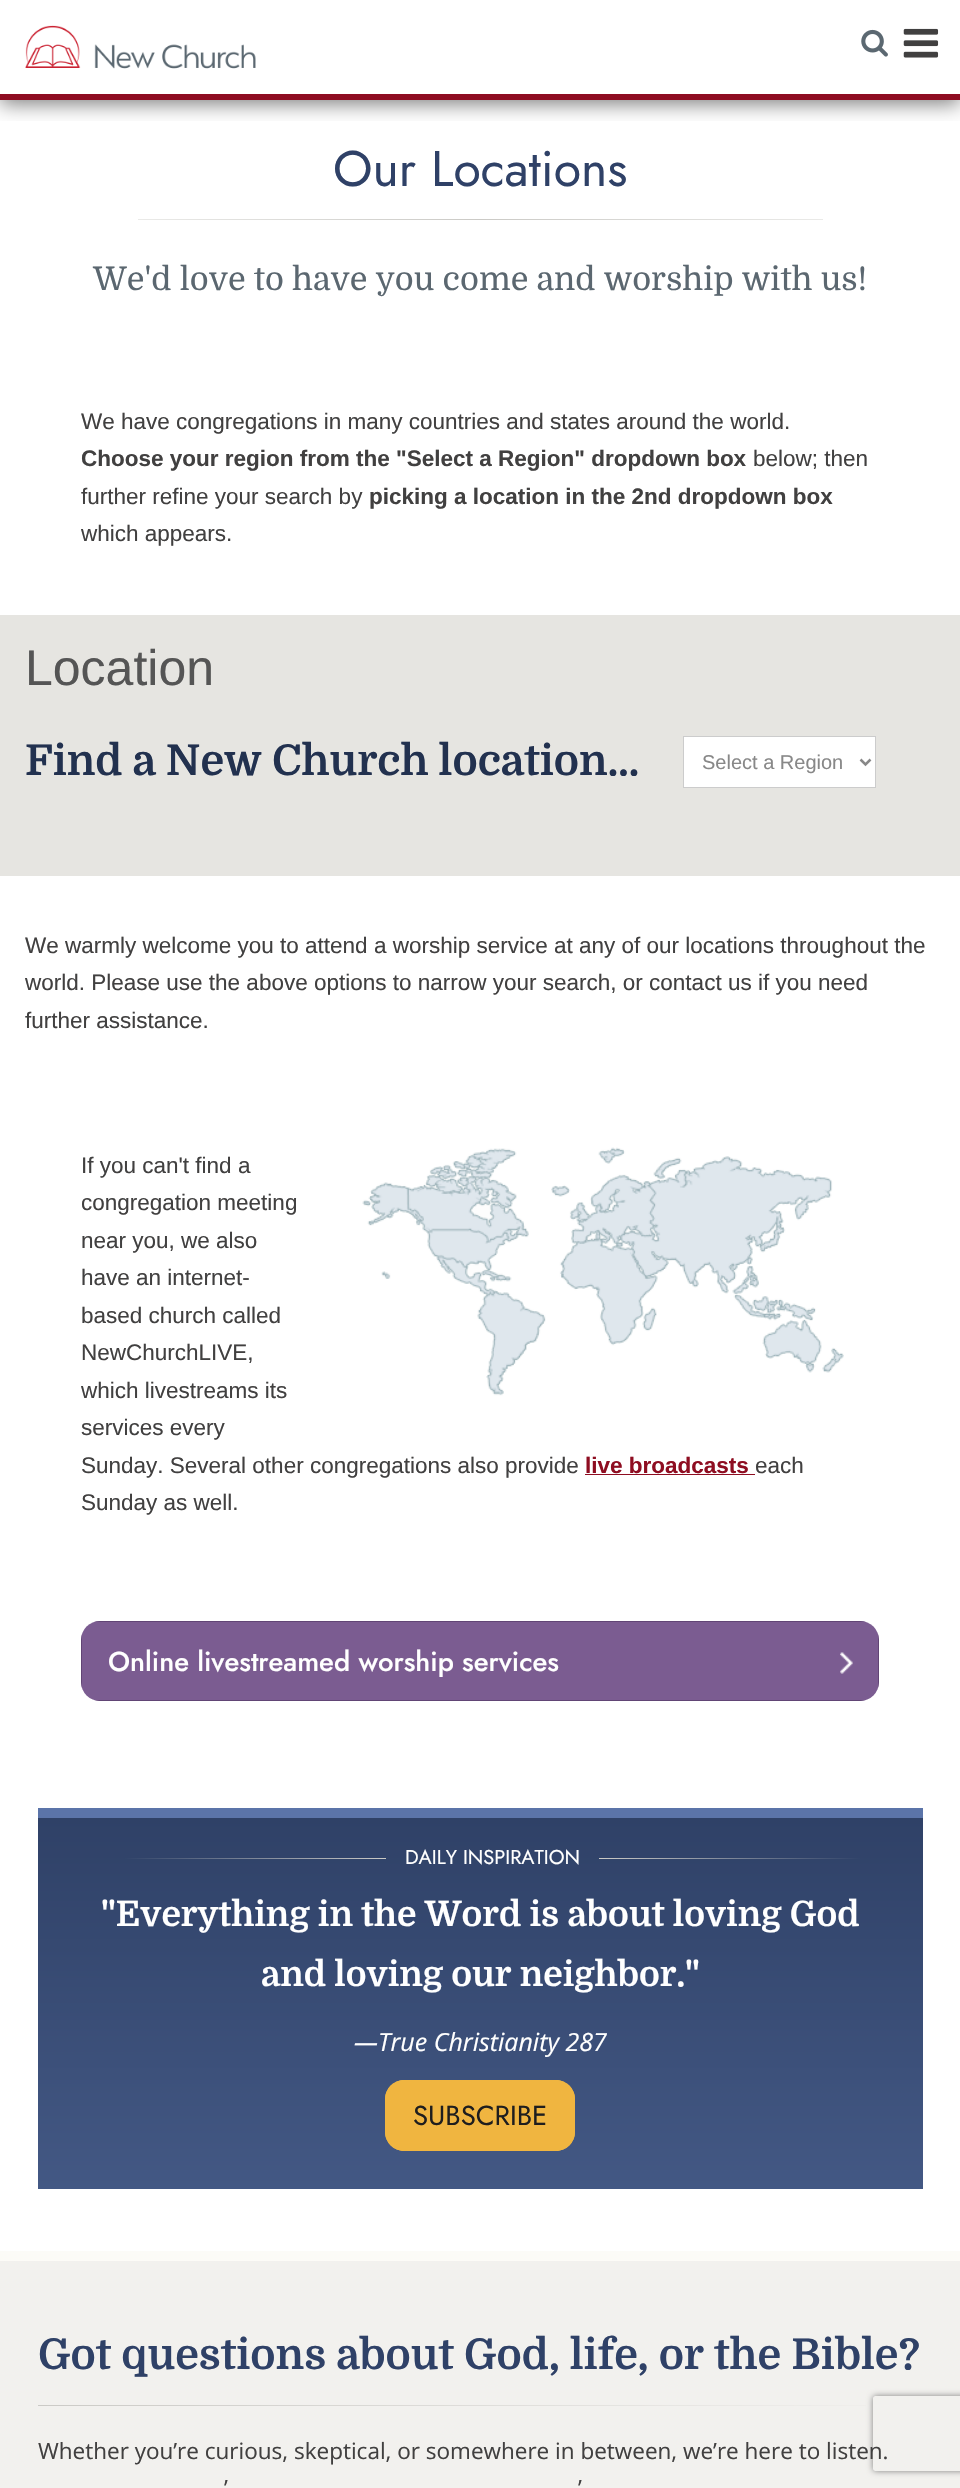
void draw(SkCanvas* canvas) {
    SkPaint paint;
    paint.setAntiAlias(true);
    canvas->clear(0xFFFFFFFF);
    canvas->save();
    canvas->clipRect(SkRect::MakeXYWH(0, 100, 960, 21));
    paint.setColor(0x80000000);
    paint.setMaskFilter(SkMaskFilter::MakeBlur(kNormal_SkBlurStyle, 9.5f));
    canvas->drawRect(SkRect::MakeXYWH(0, 4, 960, 100), paint);
    paint.setMaskFilter(nullptr);
    canvas->restore();
    canvas->drawImageRect(SkImages::DeferredFromEncodedData(SkData::MakeFromFileName("img1.png")), SkRect::MakeXYWH(25, 25, 231, 44), SkSamplingOptions());
    paint.setColor(0xFF8E0D21);
    canvas->drawRect(SkRect::MakeXYWH(0, 94, 960, 6), paint);
    canvas->drawImageRect(SkImages::DeferredFromEncodedData(SkData::MakeFromFileName("img2.png")), SkRect::MakeXYWH(861, 29, 27, 28), SkSamplingOptions());
    canvas->drawImageRect(SkImages::DeferredFromEncodedData(SkData::MakeFromFileName("img3.png")), SkRect::MakeXYWH(903, 28, 36, 30), SkSamplingOptions());
    SkFont font1(fontMgr->matchFamilyStyle("Jost", SkFontStyle::Normal()), 50);
    font1.setSubpixel(true);
    paint.setColor(0xFF2F4167);
    canvas->drawString("Our Locations", 333, 186, font1, paint);
    {
        const SkColor colors[] = {0xFFEAEAE8, 0xFFCBCAC6, 0xFFEAEAE8};
        const float stops[] = {0, 0.5f, 1};
        const SkPoint ends[] = {{823, 219}, {138, 219}};
        paint.setShader(SkGradientShader::MakeLinear(ends, colors, stops, 3, SkTileMode::kClamp));
        paint.setAlpha(255);
    }
    canvas->drawRect(SkRect::MakeXYWH(138, 219, 685, 1), paint);
    SkFont font2(fontMgr->matchFamilyStyle("Domine", SkFontStyle::Normal()), 32.5f);
    font2.setSubpixel(true);
    paint.setShader(nullptr);
    paint.setColor(0xFF5B6770);
    canvas->drawString("We'd love to have you come and worship with us!", 93, 290, font2, paint);
    SkFont font3(fontMgr->matchFamilyStyle("Liberation Sans", SkFontStyle::Normal()), 22.5f);
    font3.setSubpixel(true);
    paint.setColor(0xFF414040);
    canvas->drawString("We have congregations in many countries and states around the world.", 81, 429, font3, paint);
    SkFont font4(fontMgr->matchFamilyStyle("Liberation Sans", SkFontStyle::Bold()), 22.5f);
    font4.setSubpixel(true);
    canvas->drawString("Choose your region from the \"Select a Region\" dropdown box", 81, 466, font4, paint);
    canvas->drawString("below; then", 753, 466, font3, paint);
    canvas->drawString("further refine your search by", 81, 504, font3, paint);
    canvas->drawString("picking a location in the 2nd dropdown box", 369, 504, font4, paint);
    canvas->drawString("which appears.", 81, 541, font3, paint);
    paint.setColor(0xFFE6E5E1);
    canvas->drawRect(SkRect::MakeXYWH(0, 615, 960, 261), paint);
    SkFont font5(fontMgr->matchFamilyStyle("Liberation Sans", SkFontStyle::Normal()), 50);
    font5.setSubpixel(true);
    paint.setColor(0xFF555555);
    canvas->drawString("Location", 25, 685, font5, paint);
    SkFont font6(fontMgr->matchFamilyStyle("Domine", SkFontStyle::Bold()), 42.5f);
    font6.setSubpixel(true);
    paint.setColor(0xFF22314F);
    canvas->drawString("Find a New Church location...", 25, 775, font6, paint);
    paint.setColor(0xFFFFFFFF);
    canvas->drawRect(SkRect::MakeXYWH(683.5f, 736.5f, 192, 51), paint);
    paint.setStyle(SkPaint::kStroke_Style);
    paint.setStrokeWidth(1);
    paint.setColor(0xFFCCCCCC);
    canvas->drawRect(SkRect::MakeXYWH(683.5f, 736.5f, 192, 51), paint);
    paint.setStrokeWidth(2.5f);
    paint.setColor(0xFF888888);
    canvas->drawPath(SkPathBuilder().moveTo(860.5f, 759.5f).lineTo(865.5f, 764.5f).lineTo(870.5f, 759.5f).detach(), paint);
    SkFont font7(fontMgr->matchFamilyStyle("Liberation Sans", SkFontStyle::Normal()), 20);
    font7.setSubpixel(true);
    paint.setStyle(SkPaint::kFill_Style);
    canvas->drawString("Select a Region", 702, 769, font7, paint);
    paint.setColor(0xFF414040);
    canvas->drawString("We warmly welcome you to attend a worship service at any of our locations throughout the", 25, 953, font3, paint);
    canvas->drawString("world. Please use the above options to narrow your search, or contact us if you need", 25, 990, font3, paint);
    canvas->drawString("further assistance.", 25, 1028, font3, paint);
    canvas->drawImageRect(SkImages::DeferredFromEncodedData(SkData::MakeFromFileName("img4.png")), SkRect::MakeXYWH(362, 1147, 482, 249), SkSamplingOptions());
    canvas->drawString("If you can't find a", 81, 1173, font3, paint);
    canvas->drawString("congregation meeting", 81, 1210, font3, paint);
    canvas->drawString("near you, we also", 81, 1248, font3, paint);
    canvas->drawString("have an internet-", 81, 1285, font3, paint);
    canvas->drawString("based church called", 81, 1323, font3, paint);
    canvas->drawString("NewChurchLIVE,", 81, 1360, font3, paint);
    canvas->drawString("which livestreams its", 81, 1398, font3, paint);
    canvas->drawString("services every", 81, 1435, font3, paint);
    canvas->drawString("Sunday. Several other congregations also provide", 81, 1473, font3, paint);
    paint.setColor(0xFF8E0D21);
    canvas->drawString("live broadcasts", 585, 1473, font4, paint);
    canvas->drawRect(SkRect::MakeXYWH(585, 1474, 170, 1), paint);
    paint.setColor(0xFF414040);
    canvas->drawString("each", 755, 1473, font3, paint);
    canvas->drawString("Sunday as well.", 81, 1510, font3, paint);
    paint.setColor(0xFF7B5C91);
    canvas->drawRoundRect(SkRect::MakeXYWH(81, 1621, 798, 80), 19, 19, paint);
    canvas->drawImageRect(SkImages::DeferredFromEncodedData(SkData::MakeFromFileName("img5.png")), SkRect::MakeXYWH(840, 1652, 13, 22), SkSamplingOptions());
    paint.setColor(0xFF614575);
    canvas->drawPath(SkPathBuilder(SkPathFillType::kEvenOdd).moveTo(81, 1640).lineTo(81, 1682).lineTo(82, 1688).lineTo(82, 1634).close().moveTo(100, 1621).lineTo(94, 1622).lineTo(866, 1622).lineTo(860, 1621).close().moveTo(879, 1640).lineTo(878, 1634).lineTo(878, 1688).lineTo(879, 1682).close().moveTo(860, 1701).lineTo(866, 1700).lineTo(94, 1700).lineTo(100, 1701).close().detach(), paint);
    SkFont font8(fontMgr->matchFamilyStyle("Jost", SkFontStyle(500, SkFontStyle::kNormal_Width, SkFontStyle::kUpright_Slant)), 27.5f);
    font8.setSubpixel(true);
    paint.setColor(0xFFFFFFFF);
    canvas->drawString("Online livestreamed worship services", 108, 1671, font8, paint);
    {
        const SkColor colors[] = {0xFF2F4167, 0xFF435884};
        const float stops[] = {0, 1};
        const SkPoint ends[] = {{480, 1818}, {480, 2189}};
        paint.setShader(SkGradientShader::MakeLinear(ends, colors, stops, 2, SkTileMode::kClamp));
        paint.setAlpha(255);
    }
    canvas->drawRect(SkRect::MakeXYWH(38, 1818, 885, 371), paint);
    paint.setShader(nullptr);
    paint.setColor(0xFF5B74A9);
    canvas->drawRect(SkRect::MakeXYWH(38, 1808, 885, 10), paint);
    {
        const SkColor colors[] = {0xFFCBCAC6, 0xFF31446A};
        const float stops[] = {0, 1};
        const SkPoint ends[] = {{386, 1858}, {124, 1858}};
        paint.setShader(SkGradientShader::MakeLinear(ends, colors, stops, 2, SkTileMode::kClamp));
        paint.setAlpha(255);
    }
    canvas->drawRect(SkRect::MakeXYWH(124, 1858, 262, 1), paint);
    SkFont font9(fontMgr->matchFamilyStyle("Jost", SkFontStyle::Normal()), 20);
    font9.setSubpixel(true);
    paint.setShader(nullptr);
    paint.setColor(0xFFFFFFFF);
    canvas->drawString("DAILY INSPIRATION", 405, 1864, font9, paint);
    {
        const SkColor colors[] = {0xFFCBCAC6, 0xFF31446A};
        const float stops[] = {0, 1};
        const SkPoint ends[] = {{599, 1858}, {861, 1858}};
        paint.setShader(SkGradientShader::MakeLinear(ends, colors, stops, 2, SkTileMode::kClamp));
        paint.setAlpha(255);
    }
    canvas->drawRect(SkRect::MakeXYWH(599, 1858, 262, 1), paint);
    SkFont font10(fontMgr->matchFamilyStyle("Domine", SkFontStyle::Bold()), 35);
    font10.setSubpixel(true);
    paint.setShader(nullptr);
    paint.setColor(0xFFFFFFFF);
    canvas->drawString("\"Everything in the Word is about loving God", 101, 1926, font10, paint);
    canvas->drawString("and loving our neighbor.\"", 261, 1986, font10, paint);
    SkFont font11(fontMgr->matchFamilyStyle("Open Sans", SkFontStyle::Italic()), 25);
    font11.setSubpixel(true);
    canvas->drawString("—True Christianity 287", 354, 2051, font11, paint);
    paint.setColor(0xFFF0B540);
    canvas->drawRoundRect(SkRect::MakeXYWH(385, 2080, 190, 71), 19, 19, paint);
    canvas->drawPath(SkPathBuilder().moveTo(404, 2080).cubicTo(394, 2080, 385, 2089, 385, 2099).lineTo(385, 2132).cubicTo(385, 2142, 394, 2151, 404, 2151).lineTo(556, 2151).cubicTo(566, 2151, 575, 2142, 575, 2132).lineTo(575, 2099).cubicTo(575, 2089, 566, 2080, 556, 2080).close().detach(), paint);
    SkFont font12(fontMgr->matchFamilyStyle("Jost", SkFontStyle::Normal()), 27.5f);
    font12.setSubpixel(true);
    paint.setColor(0xFF1F1E1E);
    canvas->drawString("SUBSCRIBE", 413, 2125, font12, paint);
    paint.setColor(0xFFF2F1EE);
    canvas->drawRect(SkRect::MakeXYWH(0, 2261, 960, 227), paint);
    paint.setColor(0xFFFCFBF7);
    canvas->drawRect(SkRect::MakeXYWH(0, 2251, 960, 10), paint);
    paint.setColor(0xFF2F4167);
    canvas->drawString("Got questions about God, life, or the Bible?", 38, 2369, font6, paint);
    canvas->save();
    canvas->clipPath(SkPathBuilder(SkPathFillType::kEvenOdd).moveTo(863, 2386).lineTo(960, 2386).lineTo(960, 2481).lineTo(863, 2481).close().moveTo(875.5f, 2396).lineTo(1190.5f, 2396).cubicTo(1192, 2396, 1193, 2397, 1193, 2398.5f).lineTo(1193, 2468.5f).cubicTo(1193, 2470, 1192, 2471, 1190.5f, 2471).lineTo(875.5f, 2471).cubicTo(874, 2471, 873, 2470, 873, 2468.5f).lineTo(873, 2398.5f).cubicTo(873, 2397, 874, 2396, 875.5f, 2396).close().detach(), true);
    paint.setColor(0xFF808080);
    paint.setMaskFilter(SkMaskFilter::MakeBlur(kNormal_SkBlurStyle, 3));
    canvas->drawRoundRect(SkRect::MakeXYWH(873, 2396, 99, 75), 2.5f, 2.5f, paint);
    paint.setMaskFilter(nullptr);
    canvas->restore();
    {
        const SkColor colors[] = {0xFFCBCAC6, 0x00CBCAC6};
        const float stops[] = {0, 1};
        const SkPoint ends[] = {{38, 2406}, {920, 2406}};
        paint.setShader(SkGradientShader::MakeLinear(ends, colors, stops, 2, SkTileMode::kClamp));
        paint.setAlpha(255);
    }
    canvas->drawRect(SkRect::MakeXYWH(38, 2405, 828, 1), paint);
    SkFont font13(fontMgr->matchFamilyStyle("Open Sans", SkFontStyle::Normal()), 22.5f);
    font13.setSubpixel(true);
    paint.setShader(nullptr);
    paint.setColor(0xFF414040);
    canvas->drawString("Whether you’re curious, skeptical, or somewhere in between, we’re here to listen.", 38, 2459, font13, paint);
    canvas->drawString("’", 224, 2496, font13, paint);
    canvas->drawString("’", 578, 2496, font13, paint);
}
